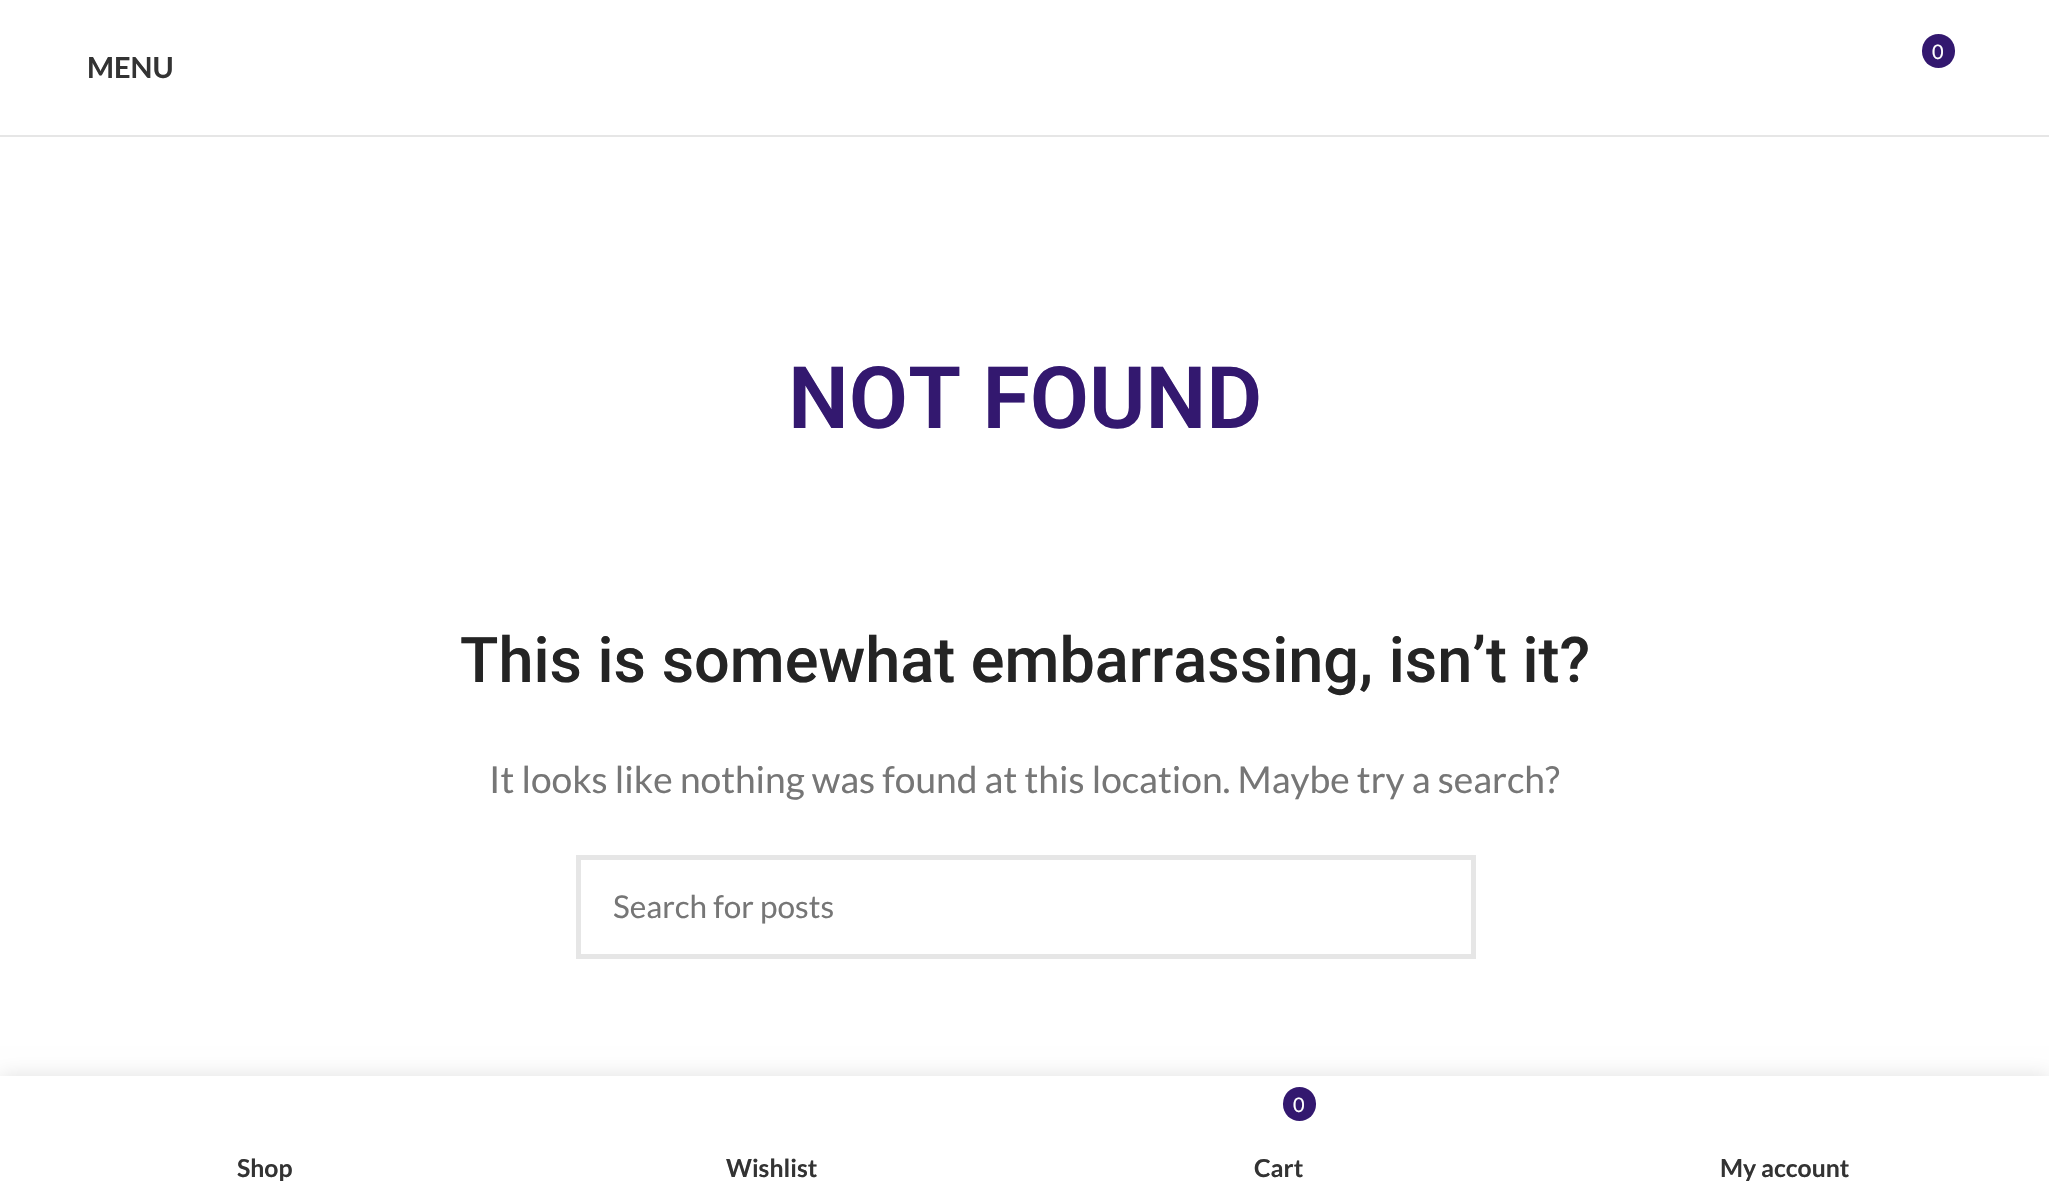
void draw(SkCanvas* canvas) {
    SkPaint paint;
    paint.setAntiAlias(true);
    canvas->clear(0xFFFFFFFF);
    paint.setColor(0xFFE6E6E6);
    canvas->drawRect(SkRect::MakeXYWH(0, 135, 2049, 2), paint);
    paint.setColor(0xFF33186F);
    canvas->drawRoundRect(SkRect::MakeXYWH(1922, 34, 33, 34), 16.5f, 16.5f, paint);
    SkFont font1(fontMgr->matchFamilyStyle("Lato", SkFontStyle::Normal()), 20);
    font1.setSubpixel(true);
    paint.setColor(0xFFFFFFFF);
    canvas->drawString("0", 1932, 59, font1, paint);
    SkFont font2(fontMgr->matchFamilyStyle("Lato", SkFontStyle::Bold()), 29);
    font2.setSubpixel(true);
    paint.setColor(0xFF333333);
    canvas->drawString("MENU", 87, 78, font2, paint);
    SkFont font3(fontMgr->matchFamilyStyle("Roboto", SkFontStyle(600, SkFontStyle::kNormal_Width, SkFontStyle::kUpright_Slant)), 86);
    font3.setSubpixel(true);
    paint.setColor(0xFF33186F);
    canvas->drawString("NOT FOUND", 788, 428, font3, paint);
    SkFont font4(fontMgr->matchFamilyStyle("Roboto", SkFontStyle(500, SkFontStyle::kNormal_Width, SkFontStyle::kUpright_Slant)), 63);
    font4.setSubpixel(true);
    paint.setColor(0xFF242424);
    canvas->drawString("This is somewhat embarrassing, isn’t it?", 460, 682, font4, paint);
    SkFont font5(fontMgr->matchFamilyStyle("Lato", SkFontStyle::Normal()), 37.1f);
    font5.setSubpixel(true);
    paint.setColor(0xFF767676);
    canvas->drawString("It looks like nothing was found at this location. Maybe try a search?", 489, 793, font5, paint);
    paint.setStyle(SkPaint::kStroke_Style);
    paint.setStrokeWidth(5);
    paint.setColor(0xFFE6E6E6);
    canvas->drawRect(SkRect::MakeXYWH(578.5f, 857.5f, 895, 99), paint);
    SkFont font6(fontMgr->matchFamilyStyle("Lato", SkFontStyle::Normal()), 31.5f);
    font6.setSubpixel(true);
    paint.setStyle(SkPaint::kFill_Style);
    paint.setColor(0xFF767676);
    canvas->drawString("Search for posts", 613, 918, font6, paint);
    paint.setColor(0x1F000000);
    paint.setMaskFilter(SkMaskFilter::MakeBlur(kNormal_SkBlurStyle, 10));
    canvas->drawRect(SkRect::MakeXYWH(0, 1076, 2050, 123), paint);
    paint.setMaskFilter(nullptr);
    paint.setColor(0xFFFFFFFF);
    canvas->drawRect(SkRect::MakeXYWH(0, 1076, 2049, 122), paint);
    canvas->save();
    canvas->clipRect(SkRect::MakeXYWH(34, 1152, 461, 29));
    SkFont font7(fontMgr->matchFamilyStyle("Lato", SkFontStyle::Bold()), 24.75f);
    font7.setSubpixel(true);
    paint.setColor(0xFF333333);
    canvas->drawString("Shop", 237, 1177, font7, paint);
    canvas->restore();
    canvas->drawString("Wishlist", 726, 1177, font7, paint);
    paint.setColor(0xFF33186F);
    canvas->drawRoundRect(SkRect::MakeXYWH(1283, 1087, 33, 34), 16.5f, 16.5f, paint);
    paint.setColor(0xFFFFFFFF);
    canvas->drawString("0", 1293, 1112, font1, paint);
    paint.setColor(0xFF333333);
    canvas->drawString("Cart", 1254, 1177, font7, paint);
    canvas->save();
    canvas->clipRect(SkRect::MakeXYWH(1555, 1152, 461, 29));
    canvas->drawString("My account", 1720, 1177, font7, paint);
    canvas->restore();
}
